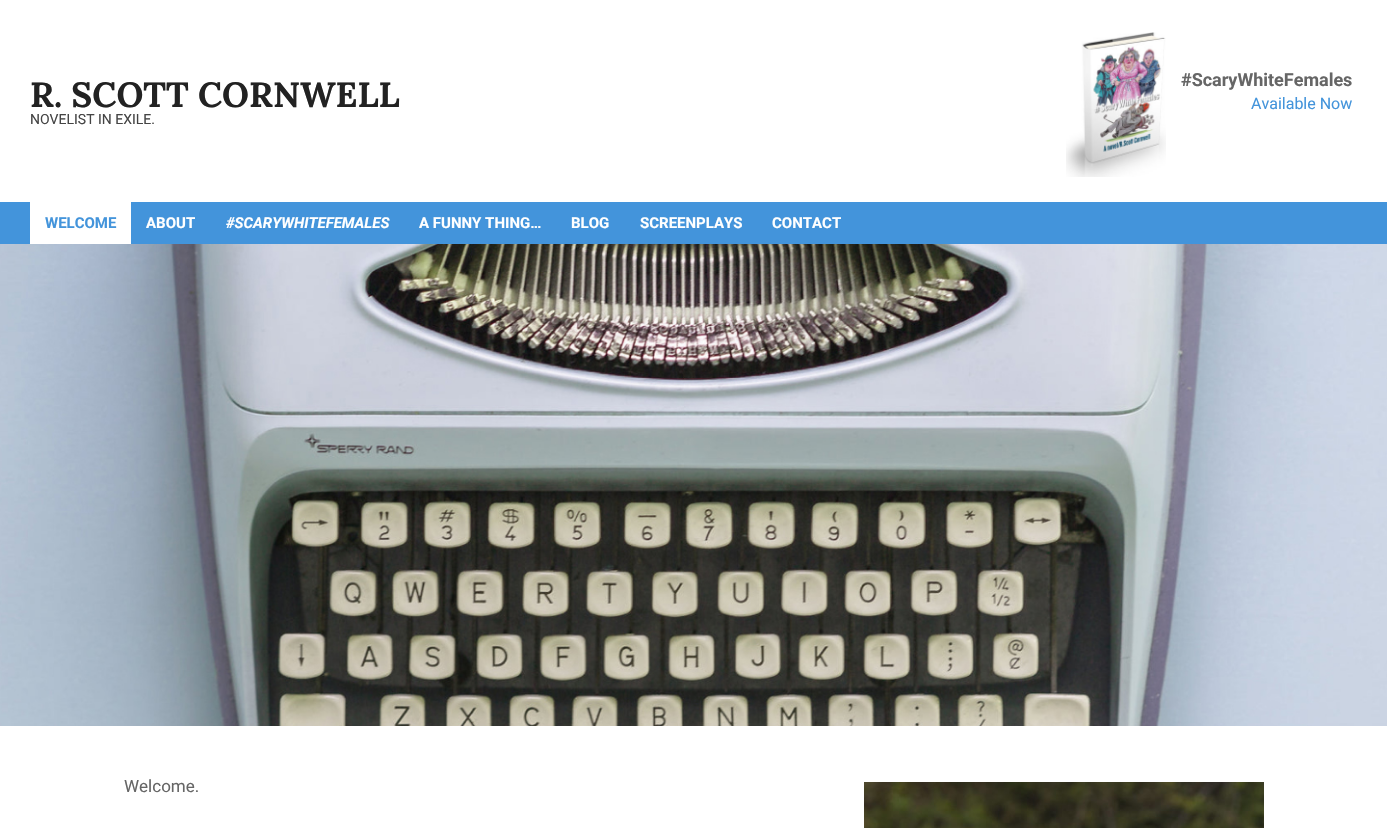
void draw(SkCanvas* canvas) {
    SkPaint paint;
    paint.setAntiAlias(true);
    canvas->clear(0xFFFFFFFF);
    SkFont font1(fontMgr->matchFamilyStyle("Lora", SkFontStyle::Bold()), 35);
    font1.setSubpixel(true);
    paint.setColor(0xFF222222);
    canvas->drawString("R. SCOTT CORNWELL", 30, 107, font1, paint);
    SkFont font2(fontMgr->matchFamilyStyle("Roboto", SkFontStyle::Normal()), 14);
    font2.setSubpixel(true);
    paint.setColor(0xFF444444);
    canvas->drawString("NOVELIST IN EXILE.", 30, 124, font2, paint);
    canvas->drawImageRect(SkImages::DeferredFromEncodedData(SkData::MakeFromFileName("img1.png")), SkRect::MakeXYWH(1066, 32, 100, 145), SkSamplingOptions());
    SkFont font3(fontMgr->matchFamilyStyle("Roboto", SkFontStyle::Bold()), 18);
    font3.setSubpixel(true);
    paint.setColor(0xFF666666);
    canvas->drawString("#ScaryWhiteFemales", 1181, 86, font3, paint);
    SkFont font4(fontMgr->matchFamilyStyle("Roboto", SkFontStyle::Normal()), 16);
    font4.setSubpixel(true);
    paint.setColor(0xFF4394DB);
    canvas->drawString("Available Now", 1251, 109, font4, paint);
    canvas->drawRect(SkRect::MakeXYWH(0, 202, 1387, 42), paint);
    paint.setColor(0xFFFFFFFF);
    canvas->drawRect(SkRect::MakeXYWH(30, 202, 101, 42), paint);
    SkFont font5(fontMgr->matchFamilyStyle("Roboto", SkFontStyle::Bold()), 15);
    font5.setSubpixel(true);
    paint.setColor(0xFF4394DB);
    canvas->drawString("WELCOME", 45, 228, font5, paint);
    paint.setColor(0xFFFFFFFF);
    canvas->drawString("ABOUT", 146, 228, font5, paint);
    SkFont font6(fontMgr->matchFamilyStyle("Roboto", SkFontStyle::BoldItalic()), 15);
    font6.setSubpixel(true);
    canvas->drawString("#SCARYWHITEFEMALES", 226, 228, font6, paint);
    canvas->drawString("A FUNNY THING…", 419, 228, font5, paint);
    canvas->drawString("BLOG", 571, 228, font5, paint);
    canvas->drawString("SCREENPLAYS", 640, 228, font5, paint);
    canvas->drawString("CONTACT", 772, 228, font5, paint);
    canvas->drawImageRect(SkImages::DeferredFromEncodedData(SkData::MakeFromFileName("img2.png")), SkRect::MakeXYWH(0, 244, 1387, 482), SkSamplingOptions());
    SkFont font7(fontMgr->matchFamilyStyle("Roboto", SkFontStyle::Normal()), 17);
    font7.setSubpixel(true);
    paint.setColor(0xFF666666);
    canvas->drawString("Welcome.", 124, 792, font7, paint);
    canvas->drawImageRect(SkImages::DeferredFromEncodedData(SkData::MakeFromFileName("img3.png")), SkRect::MakeXYWH(864, 782, 400, 46), SkSamplingOptions());
}
